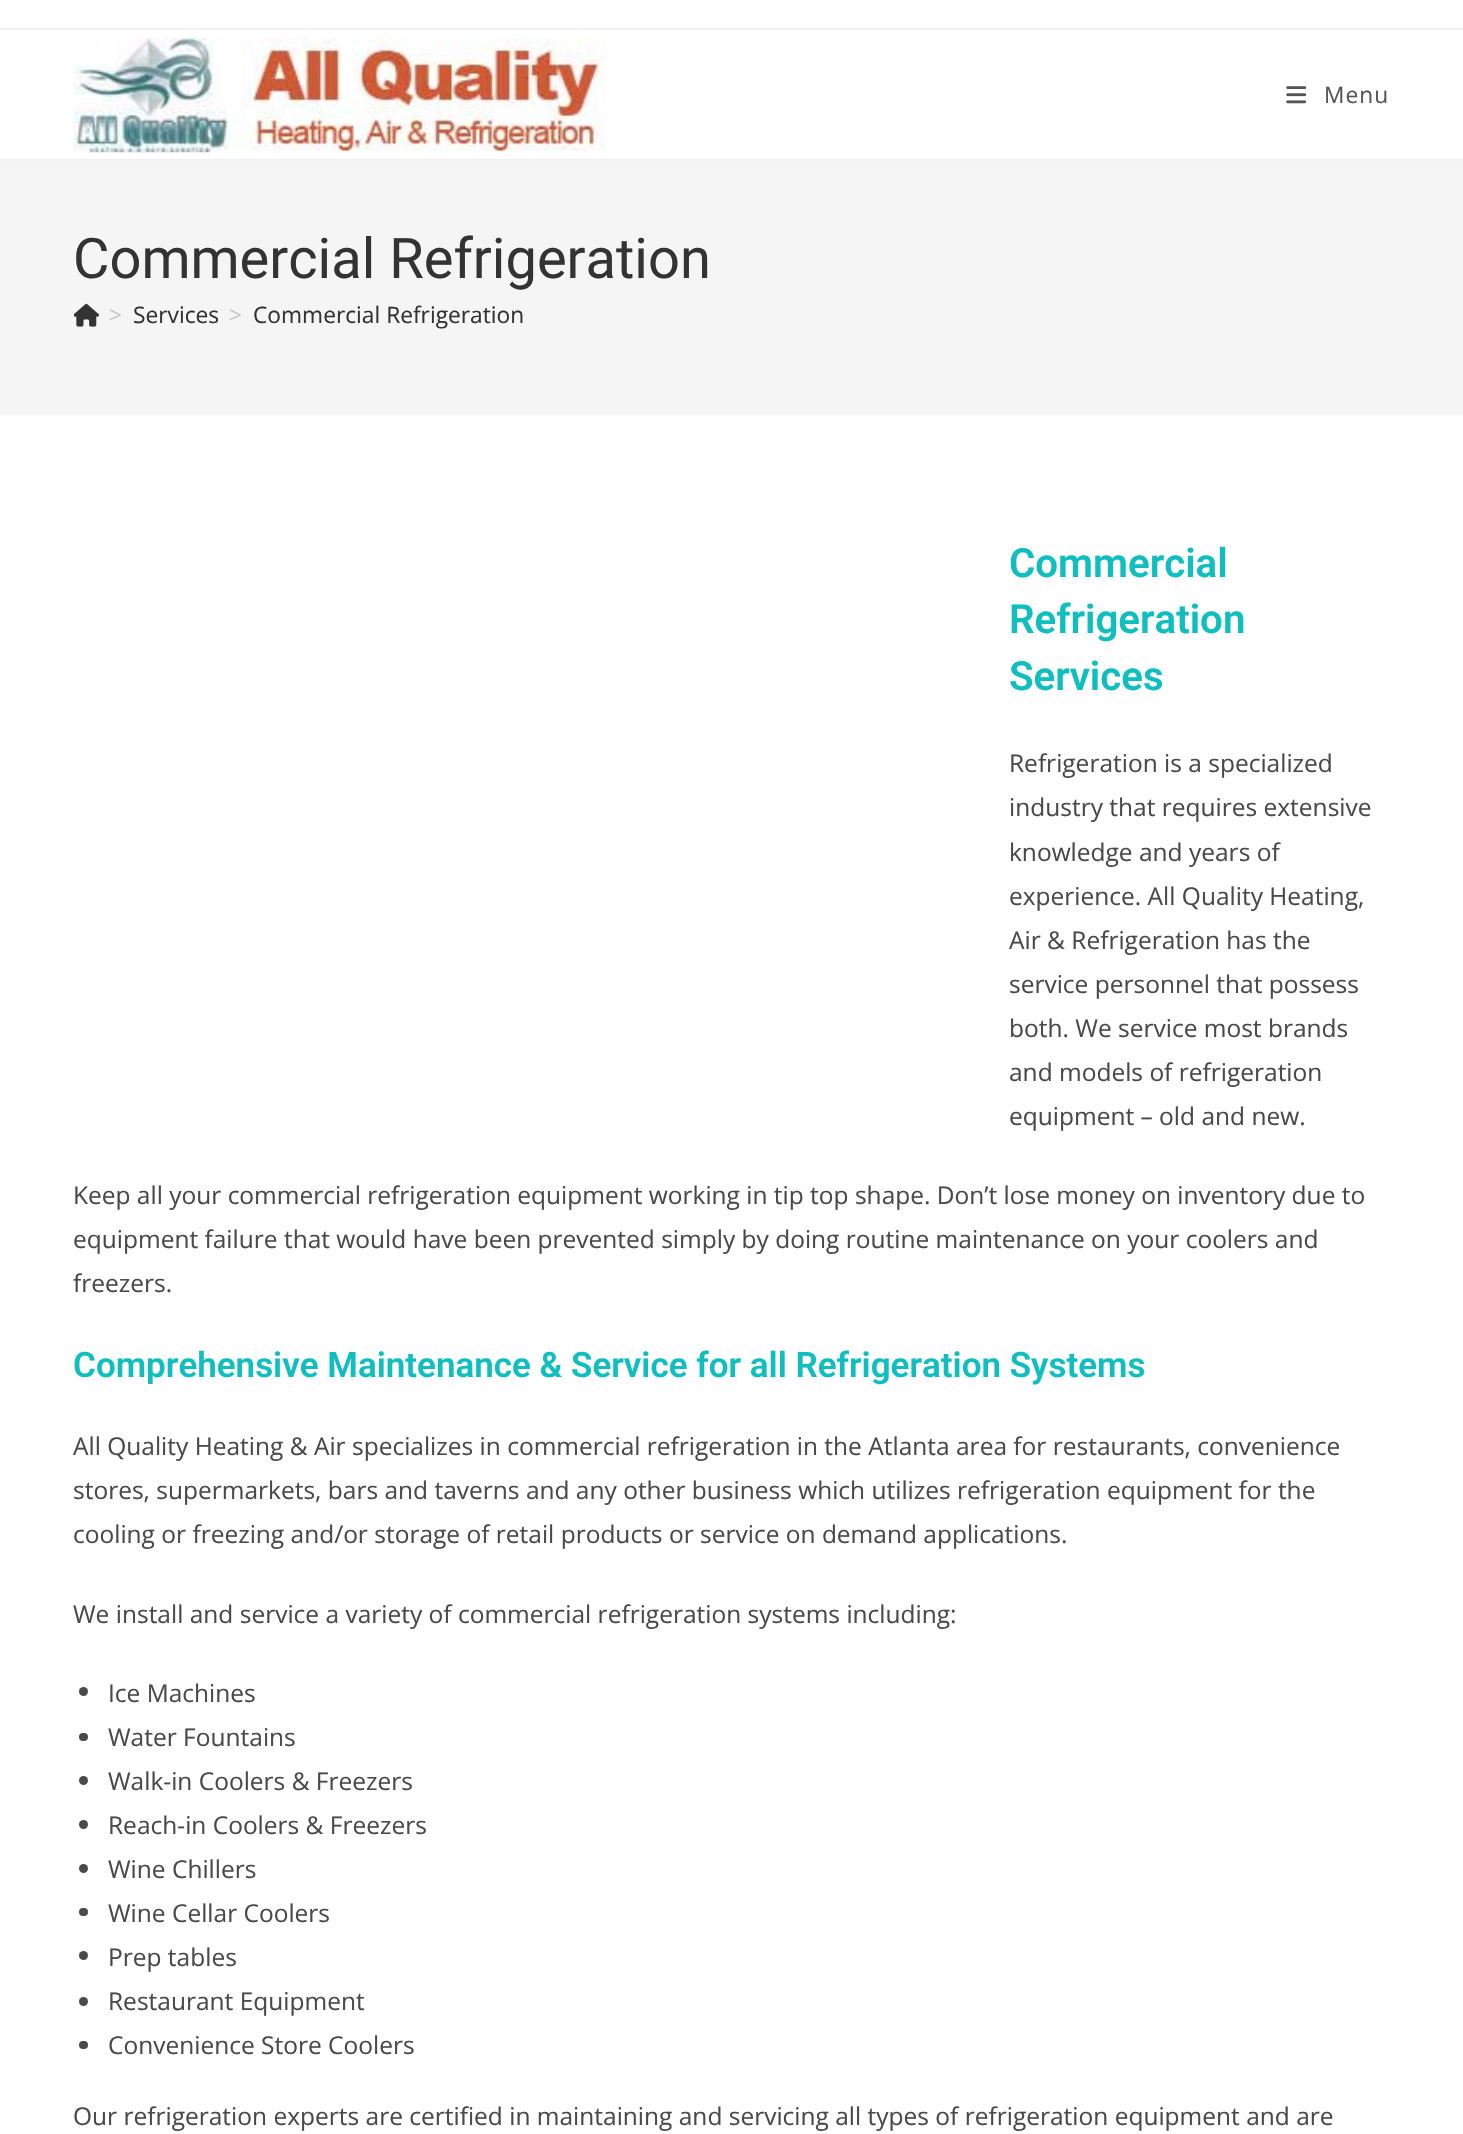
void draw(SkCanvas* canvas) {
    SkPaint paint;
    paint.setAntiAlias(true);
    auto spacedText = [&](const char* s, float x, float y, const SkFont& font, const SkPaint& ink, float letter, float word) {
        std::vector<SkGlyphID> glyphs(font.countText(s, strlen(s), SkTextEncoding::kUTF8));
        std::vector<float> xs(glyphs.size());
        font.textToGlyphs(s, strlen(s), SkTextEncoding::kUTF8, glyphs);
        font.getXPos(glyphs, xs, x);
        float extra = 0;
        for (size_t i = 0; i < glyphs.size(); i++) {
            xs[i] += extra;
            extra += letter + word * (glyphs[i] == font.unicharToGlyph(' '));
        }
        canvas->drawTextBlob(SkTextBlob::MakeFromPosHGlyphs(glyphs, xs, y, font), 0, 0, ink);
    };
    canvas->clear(0xFFFFFFFF);
    paint.setColor(0xFFF1F1F1);
    canvas->drawRect(SkRect::MakeXYWH(0, 28, 1463, 2), paint);
    canvas->drawRect(SkRect::MakeXYWH(0, 159, 1463, 2), paint);
    canvas->drawImageRect(SkImages::DeferredFromEncodedData(SkData::MakeFromFileName("img1.png")), SkRect::MakeXYWH(73, 38, 534, 115), SkSamplingOptions());
    canvas->drawImageRect(SkImages::DeferredFromEncodedData(SkData::MakeFromFileName("img2.png")), SkRect::MakeXYWH(1286, 86, 21, 18), SkSamplingOptions());
    SkFont font1(fontMgr->matchFamilyStyle("Open Sans", SkFontStyle::Normal()), 22.75f);
    font1.setSubpixel(true);
    paint.setColor(0xFF555555);
    spacedText("Menu", 1324, 103, font1, paint, 1, 0);
    paint.setColor(0xFFF5F5F5);
    canvas->drawRect(SkRect::MakeXYWH(0, 161, 1463, 254), paint);
    SkFont font2(fontMgr->matchFamilyStyle("Roboto", SkFontStyle::Normal()), 56);
    font2.setSubpixel(true);
    paint.setColor(0xFF333333);
    canvas->drawString("Commercial Refrigeration", 73, 278, font2, paint);
    canvas->drawImageRect(SkImages::DeferredFromEncodedData(SkData::MakeFromFileName("img3.png")), SkRect::MakeXYWH(74, 303, 26, 24), SkSamplingOptions());
    paint.setColor(0xFFC6C6C6);
    canvas->drawString(">", 109, 323, font1, paint);
    paint.setColor(0xFF333333);
    canvas->drawString("Services", 133, 323, font1, paint);
    paint.setColor(0xFFC6C6C6);
    canvas->drawString(">", 229, 323, font1, paint);
    paint.setColor(0xFF333333);
    canvas->drawString("Commercial Refrigeration", 253, 323, font1, paint);
    SkFont font3(fontMgr->matchFamilyStyle("Roboto", SkFontStyle(600, SkFontStyle::kNormal_Width, SkFontStyle::kUpright_Slant)), 40.25f);
    font3.setSubpixel(true);
    paint.setColor(0xFF0FBFBF);
    canvas->drawString("Commercial", 1009, 577, font3, paint);
    canvas->drawString("Refrigeration", 1009, 633, font3, paint);
    canvas->drawString("Services", 1009, 690, font3, paint);
    SkFont font4(fontMgr->matchFamilyStyle("Open Sans", SkFontStyle::Normal()), 24.5f);
    font4.setSubpixel(true);
    paint.setColor(0xFF4A4A4A);
    canvas->drawString("Refrigeration is a specialized", 1009, 772, font4, paint);
    canvas->drawString("industry that requires extensive", 1009, 816, font4, paint);
    canvas->drawString("knowledge and years of", 1009, 861, font4, paint);
    canvas->drawString("experience. All Quality Heating,", 1009, 905, font4, paint);
    canvas->drawString("Air & Refrigeration has the", 1009, 949, font4, paint);
    canvas->drawString("service personnel that possess", 1009, 993, font4, paint);
    canvas->drawString("both. We service most brands", 1009, 1037, font4, paint);
    canvas->drawString("and models of refrigeration", 1009, 1081, font4, paint);
    canvas->drawString("equipment – old and new.", 1009, 1125, font4, paint);
    canvas->drawString("Keep all your commercial refrigeration equipment working in tip top shape. Don’t lose money on inventory due to", 73, 1204, font4, paint);
    canvas->drawString("equipment failure that would have been prevented simply by doing routine maintenance on your coolers and", 73, 1248, font4, paint);
    canvas->drawString("freezers.", 73, 1292, font4, paint);
    SkFont font5(fontMgr->matchFamilyStyle("Roboto", SkFontStyle(600, SkFontStyle::kNormal_Width, SkFontStyle::kUpright_Slant)), 35);
    font5.setSubpixel(true);
    paint.setColor(0xFF0FBFBF);
    canvas->drawString("Comprehensive Maintenance & Service for all Refrigeration Systems", 73, 1377, font5, paint);
    paint.setColor(0xFF4A4A4A);
    canvas->drawString("All Quality Heating & Air specializes in commercial refrigeration in the Atlanta area for restaurants, convenience", 73, 1455, font4, paint);
    canvas->drawString("stores, supermarkets, bars and taverns and any other business which utilizes refrigeration equipment for the", 73, 1499, font4, paint);
    canvas->drawString("cooling or freezing and/or storage of retail products or service on demand applications.", 73, 1543, font4, paint);
    canvas->drawString("We install and service a variety of commercial refrigeration systems including:", 73, 1623, font4, paint);
    canvas->drawCircle(83.5f, 1691.5f, 4.5f, paint);
    canvas->drawString("Ice Machines", 108, 1702, font4, paint);
    canvas->drawRoundRect(SkRect::MakeXYWH(79, 1733, 9, 8), 4, 4, paint);
    canvas->drawString("Water Fountains", 108, 1746, font4, paint);
    canvas->drawCircle(83.5f, 1780.5f, 4.5f, paint);
    canvas->drawString("Walk-in Coolers & Freezers", 108, 1790, font4, paint);
    canvas->drawCircle(83.5f, 1824.5f, 4.5f, paint);
    canvas->drawString("Reach-in Coolers & Freezers", 108, 1834, font4, paint);
    canvas->drawCircle(83.5f, 1868.5f, 4.5f, paint);
    canvas->drawString("Wine Chillers", 108, 1878, font4, paint);
    canvas->drawRoundRect(SkRect::MakeXYWH(79, 1908, 9, 8), 4, 4, paint);
    canvas->drawString("Wine Cellar Coolers", 108, 1922, font4, paint);
    canvas->drawCircle(83.5f, 1955.5f, 4.5f, paint);
    canvas->drawString("Prep tables", 108, 1966, font4, paint);
    canvas->drawCircle(83.5f, 2001.5f, 4.5f, paint);
    canvas->drawString("Restaurant Equipment", 108, 2010, font4, paint);
    canvas->drawRoundRect(SkRect::MakeXYWH(79, 2041, 9, 8), 4, 4, paint);
    canvas->drawString("Convenience Store Coolers", 108, 2054, font4, paint);
    canvas->drawString("Our refrigeration experts are certified in maintaining and servicing all types of refrigeration equipment and are", 73, 2125, font4, paint);
}
